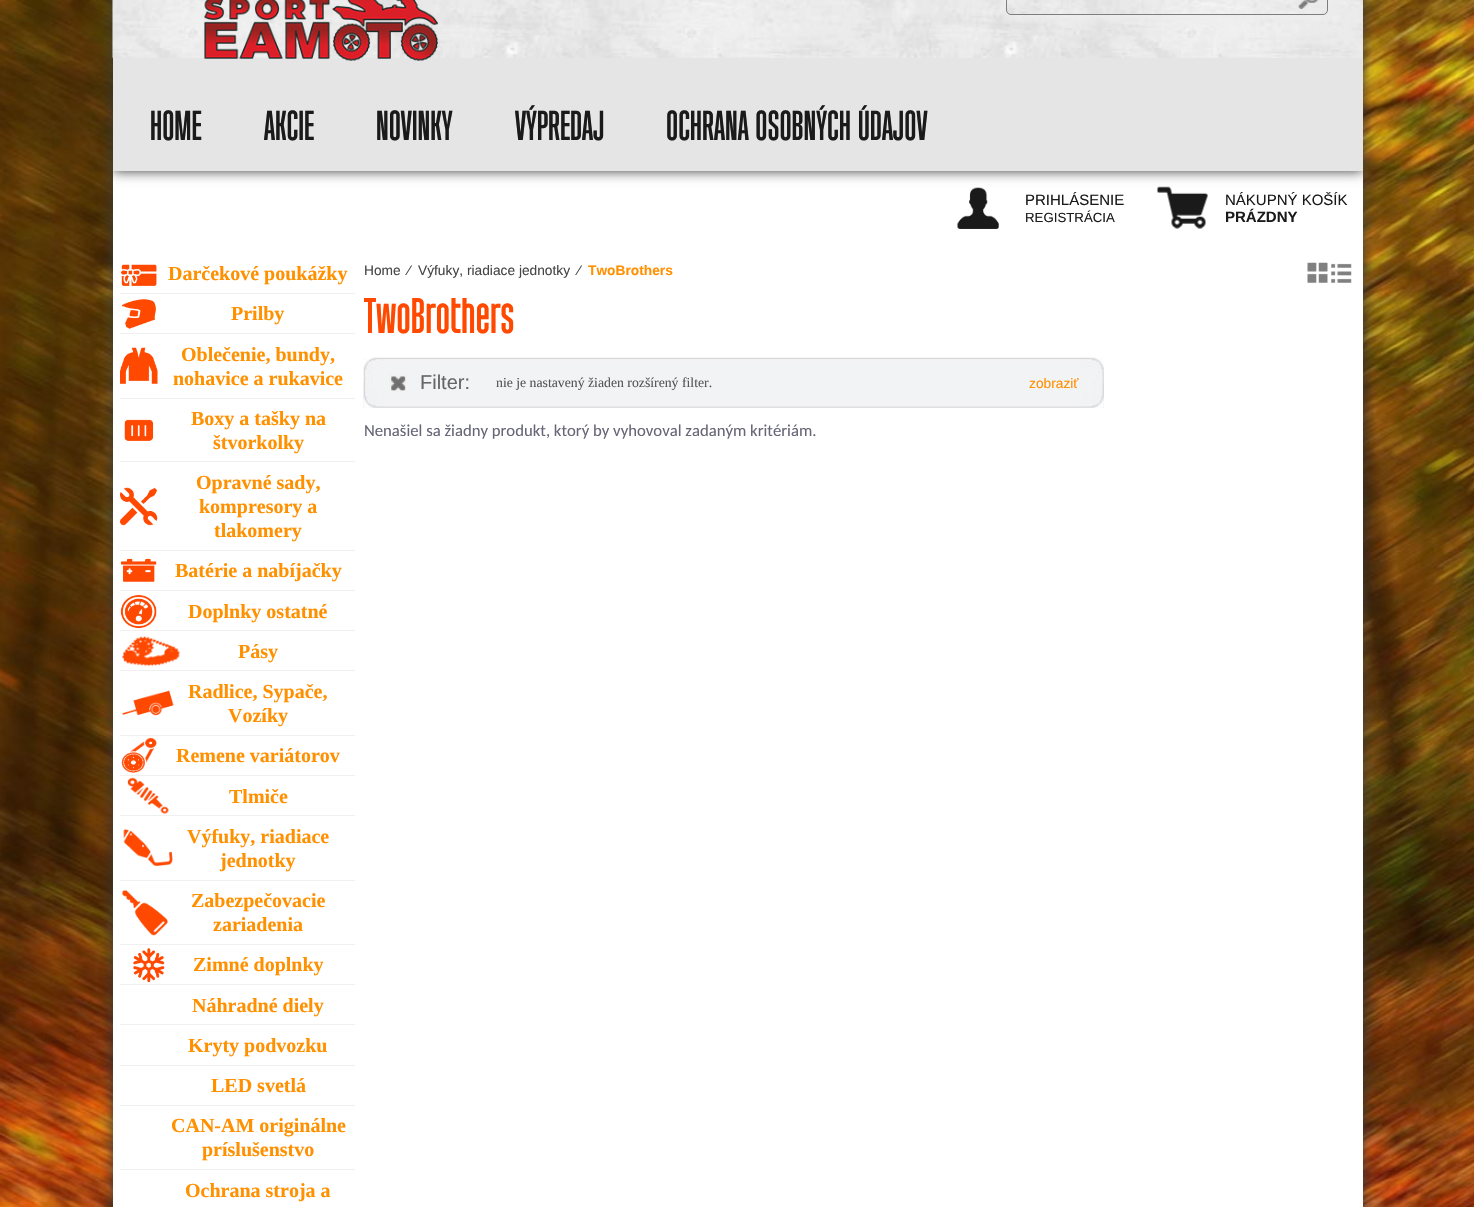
void draw(SkCanvas* canvas) {
    SkPaint paint;
    paint.setAntiAlias(true);
    canvas->clear(0xFFFFFFFF);
    canvas->drawImageRect(SkImages::DeferredFromEncodedData(SkData::MakeFromFileName("img1.png")), SkRect::MakeXYWH(0, 0, 1474, 1207), SkSamplingOptions());
    paint.setColor(0xFF383838);
    paint.setMaskFilter(SkMaskFilter::MakeBlur(kNormal_SkBlurStyle, 6));
    canvas->drawRect(SkRect::MakeXYWH(113, 171, 1250, 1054), paint);
    paint.setMaskFilter(nullptr);
    paint.setColor(0xFFFFFFFF);
    canvas->drawRect(SkRect::MakeXYWH(113, 171, 1250, 1036), paint);
    paint.setColor(0xFF383838);
    paint.setMaskFilter(SkMaskFilter::MakeBlur(kNormal_SkBlurStyle, 6));
    canvas->drawRect(SkRect::MakeXYWH(113, -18, 1250, 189), paint);
    paint.setMaskFilter(nullptr);
    paint.setColor(0xFFE5E5E5);
    canvas->drawRect(SkRect::MakeXYWH(113, 0, 1250, 171), paint);
    canvas->drawImageRect(SkImages::DeferredFromEncodedData(SkData::MakeFromFileName("img2.png")), SkRect::MakeXYWH(112, 0, 1251, 58), SkSamplingOptions());
    canvas->drawImageRect(SkImages::DeferredFromEncodedData(SkData::MakeFromFileName("img3.png")), SkRect::MakeXYWH(204, 0, 234, 61), SkSamplingOptions());
    canvas->save();
    canvas->clipPath(SkPathBuilder(SkPathFillType::kEvenOdd).moveTo(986, 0).lineTo(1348, 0).lineTo(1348, 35).lineTo(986, 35).close().moveTo(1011, -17).lineTo(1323, -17).cubicTo(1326, -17, 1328, -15, 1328, -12).lineTo(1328, 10).cubicTo(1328, 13, 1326, 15, 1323, 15).lineTo(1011, 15).cubicTo(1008, 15, 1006, 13, 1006, 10).lineTo(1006, -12).cubicTo(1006, -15, 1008, -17, 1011, -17).close().detach(), true);
    paint.setColor(0xFFEEEEEE);
    paint.setMaskFilter(SkMaskFilter::MakeBlur(kNormal_SkBlurStyle, 4.5f));
    canvas->drawRoundRect(SkRect::MakeXYWH(1001, -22, 332, 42), 10, 10, paint);
    paint.setMaskFilter(nullptr);
    canvas->restore();
    canvas->drawImageRect(SkImages::DeferredFromEncodedData(SkData::MakeFromFileName("img4.png")), SkRect::MakeXYWH(1298, 0, 21, 9), SkSamplingOptions());
    paint.setStyle(SkPaint::kStroke_Style);
    paint.setStrokeWidth(1);
    paint.setColor(0xFF7D7D7D);
    canvas->drawRoundRect(SkRect::MakeXYWH(1006.5f, -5.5f, 321, 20), 4.5f, 4.5f, paint);
    SkFont font1(fontMgr->matchFamilyStyle("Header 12", SkFontStyle::Normal()), 41.75f);
    font1.setSubpixel(true);
    paint.setStyle(SkPaint::kFill_Style);
    paint.setColor(0xFF1A1A1A);
    canvas->drawString("HOME", 150, 140, font1, paint);
    canvas->drawString("AKCIE", 264, 140, font1, paint);
    canvas->drawString("NOVINKY", 376, 140, font1, paint);
    canvas->drawString("VÝPREDAJ", 515, 140, font1, paint);
    canvas->drawString("OCHRANA OSOBNÝCH ÚDAJOV", 666, 140, font1, paint);
    canvas->drawImageRect(SkImages::DeferredFromEncodedData(SkData::MakeFromFileName("img5.png")), SkRect::MakeXYWH(957, 187, 42, 42), SkSamplingOptions());
    SkFont font2(fontMgr->matchFamilyStyle("Liberation Sans", SkFontStyle::Normal()), 15);
    font2.setSubpixel(true);
    canvas->drawString("PRIHLÁSENIE", 1025, 205, font2, paint);
    SkFont font3(fontMgr->matchFamilyStyle("Liberation Sans", SkFontStyle::Normal()), 13.25f);
    font3.setSubpixel(true);
    canvas->drawString("REGISTRÁCIA", 1025, 222, font3, paint);
    canvas->drawImageRect(SkImages::DeferredFromEncodedData(SkData::MakeFromFileName("img6.png")), SkRect::MakeXYWH(1157, 186, 51, 43), SkSamplingOptions());
    canvas->drawString("NÁKUPNÝ KOŠÍK", 1225, 205, font2, paint);
    SkFont font4(fontMgr->matchFamilyStyle("Liberation Sans", SkFontStyle::Bold()), 15);
    font4.setSubpixel(true);
    canvas->drawString("PRÁZDNY", 1225, 222, font4, paint);
    paint.setColor(0xFFF0F0F0);
    canvas->drawRect(SkRect::MakeXYWH(120, 293, 235, 1), paint);
    canvas->drawImageRect(SkImages::DeferredFromEncodedData(SkData::MakeFromFileName("img7.png")), SkRect::MakeXYWH(121, 264, 36, 22), SkSamplingOptions());
    SkFont font5(fontMgr->matchFamilyStyle("Liberation Serif", SkFontStyle::Bold()), 20);
    font5.setSubpixel(true);
    paint.setColor(0xFFFF9000);
    canvas->drawString("Darčekové poukážky", 168, 280, font5, paint);
    paint.setColor(0xFFF0F0F0);
    canvas->drawRect(SkRect::MakeXYWH(120, 333, 235, 1), paint);
    canvas->drawImageRect(SkImages::DeferredFromEncodedData(SkData::MakeFromFileName("img8.png")), SkRect::MakeXYWH(122, 299, 34, 30), SkSamplingOptions());
    paint.setColor(0xFFFF9000);
    canvas->drawString("Prilby", 231, 320, font5, paint);
    paint.setColor(0xFFF0F0F0);
    canvas->drawRect(SkRect::MakeXYWH(120, 398, 235, 1), paint);
    canvas->drawImageRect(SkImages::DeferredFromEncodedData(SkData::MakeFromFileName("img9.png")), SkRect::MakeXYWH(120, 347, 38, 37), SkSamplingOptions());
    paint.setColor(0xFFFF9000);
    canvas->drawString("Oblečenie, bundy,", 181, 361, font5, paint);
    canvas->drawString("nohavice a rukavice", 173, 385, font5, paint);
    paint.setColor(0xFFF0F0F0);
    canvas->drawRect(SkRect::MakeXYWH(120, 461, 235, 1), paint);
    canvas->drawImageRect(SkImages::DeferredFromEncodedData(SkData::MakeFromFileName("img10.png")), SkRect::MakeXYWH(124, 419, 30, 22), SkSamplingOptions());
    paint.setColor(0xFFFF9000);
    canvas->drawString("Boxy a tašky na", 191, 425, font5, paint);
    canvas->drawString("štvorkolky", 213, 449, font5, paint);
    paint.setColor(0xFFF0F0F0);
    canvas->drawRect(SkRect::MakeXYWH(120, 550, 235, 1), paint);
    paint.setColor(0xFFFF9000);
    canvas->drawString("Opravné sady,", 196, 489, font5, paint);
    canvas->drawImageRect(SkImages::DeferredFromEncodedData(SkData::MakeFromFileName("img11.png")), SkRect::MakeXYWH(120, 487, 38, 39), SkSamplingOptions());
    canvas->drawString("kompresory a", 199, 513, font5, paint);
    canvas->drawString("tlakomery", 214, 537, font5, paint);
    paint.setColor(0xFFF0F0F0);
    canvas->drawRect(SkRect::MakeXYWH(120, 590, 235, 1), paint);
    canvas->drawImageRect(SkImages::DeferredFromEncodedData(SkData::MakeFromFileName("img12.png")), SkRect::MakeXYWH(120, 558, 37, 24), SkSamplingOptions());
    paint.setColor(0xFFFF9000);
    canvas->drawString("Batérie a nabíjačky", 175, 577, font5, paint);
    paint.setColor(0xFFF0F0F0);
    canvas->drawRect(SkRect::MakeXYWH(120, 630, 235, 1), paint);
    canvas->drawImageRect(SkImages::DeferredFromEncodedData(SkData::MakeFromFileName("img13.png")), SkRect::MakeXYWH(120, 594, 37, 34), SkSamplingOptions());
    paint.setColor(0xFFFF9000);
    canvas->drawString("Doplnky ostatné", 188, 618, font5, paint);
    paint.setColor(0xFFF0F0F0);
    canvas->drawRect(SkRect::MakeXYWH(120, 670, 235, 1), paint);
    canvas->drawImageRect(SkImages::DeferredFromEncodedData(SkData::MakeFromFileName("img14.png")), SkRect::MakeXYWH(122, 636, 58, 31), SkSamplingOptions());
    paint.setColor(0xFFFF9000);
    canvas->drawString("Pásy", 238, 658, font5, paint);
    paint.setColor(0xFFF0F0F0);
    canvas->drawRect(SkRect::MakeXYWH(120, 735, 235, 1), paint);
    canvas->drawImageRect(SkImages::DeferredFromEncodedData(SkData::MakeFromFileName("img15.png")), SkRect::MakeXYWH(122, 690, 52, 26), SkSamplingOptions());
    paint.setColor(0xFFFF9000);
    canvas->drawString("Radlice, Sypače,", 188, 698, font5, paint);
    canvas->drawString("Vozíky", 228, 722, font5, paint);
    paint.setColor(0xFFF0F0F0);
    canvas->drawRect(SkRect::MakeXYWH(120, 775, 235, 1), paint);
    canvas->drawImageRect(SkImages::DeferredFromEncodedData(SkData::MakeFromFileName("img16.png")), SkRect::MakeXYWH(121, 737, 36, 36), SkSamplingOptions());
    paint.setColor(0xFFFF9000);
    canvas->drawString("Remene variátorov", 176, 762, font5, paint);
    paint.setColor(0xFFF0F0F0);
    canvas->drawRect(SkRect::MakeXYWH(120, 815, 235, 1), paint);
    canvas->drawImageRect(SkImages::DeferredFromEncodedData(SkData::MakeFromFileName("img17.png")), SkRect::MakeXYWH(127, 777, 42, 37), SkSamplingOptions());
    paint.setColor(0xFFFF9000);
    canvas->drawString("Tlmiče", 229, 803, font5, paint);
    paint.setColor(0xFFF0F0F0);
    canvas->drawRect(SkRect::MakeXYWH(120, 880, 235, 1), paint);
    canvas->drawImageRect(SkImages::DeferredFromEncodedData(SkData::MakeFromFileName("img18.png")), SkRect::MakeXYWH(123, 829, 50, 37), SkSamplingOptions());
    paint.setColor(0xFFFF9000);
    canvas->drawString("Výfuky, riadiace", 187, 843, font5, paint);
    canvas->drawString("jednotky", 220, 867, font5, paint);
    paint.setColor(0xFFF0F0F0);
    canvas->drawRect(SkRect::MakeXYWH(120, 944, 235, 1), paint);
    canvas->drawImageRect(SkImages::DeferredFromEncodedData(SkData::MakeFromFileName("img19.png")), SkRect::MakeXYWH(122, 890, 46, 46), SkSamplingOptions());
    paint.setColor(0xFFFF9000);
    canvas->drawString("Zabezpečovacie", 191, 907, font5, paint);
    canvas->drawString("zariadenia", 213, 931, font5, paint);
    paint.setColor(0xFFF0F0F0);
    canvas->drawRect(SkRect::MakeXYWH(120, 984, 235, 1), paint);
    canvas->drawImageRect(SkImages::DeferredFromEncodedData(SkData::MakeFromFileName("img20.png")), SkRect::MakeXYWH(133, 948, 32, 35), SkSamplingOptions());
    paint.setColor(0xFFFF9000);
    canvas->drawString("Zimné doplnky", 193, 971, font5, paint);
    paint.setColor(0xFFF0F0F0);
    canvas->drawRect(SkRect::MakeXYWH(120, 1024, 235, 1), paint);
    paint.setColor(0xFFFF9000);
    canvas->drawString("Náhradné diely", 192, 1012, font5, paint);
    paint.setColor(0xFFF0F0F0);
    canvas->drawRect(SkRect::MakeXYWH(120, 1065, 235, 1), paint);
    paint.setColor(0xFFFF9000);
    canvas->drawString("Kryty podvozku", 188, 1052, font5, paint);
    paint.setColor(0xFFF0F0F0);
    canvas->drawRect(SkRect::MakeXYWH(120, 1105, 235, 1), paint);
    paint.setColor(0xFFFF9000);
    canvas->drawString("LED svetlá", 211, 1092, font5, paint);
    paint.setColor(0xFFF0F0F0);
    canvas->drawRect(SkRect::MakeXYWH(120, 1169, 235, 1), paint);
    paint.setColor(0xFFFF9000);
    canvas->drawString("CAN-AM originálne", 171, 1132, font5, paint);
    canvas->drawString("príslušenstvo", 202, 1156, font5, paint);
    canvas->drawString("Ochrana stroja a", 185, 1197, font5, paint);
    SkFont font6(fontMgr->matchFamilyStyle("Liberation Sans", SkFontStyle::Normal()), 13.75f);
    font6.setSubpixel(true);
    paint.setColor(0xFF464646);
    canvas->drawString("Home", 364, 275, font6, paint);
    canvas->drawString("⁄", 408, 275, font6, paint);
    canvas->drawString("Výfuky, riadiace jednotky", 418, 275, font6, paint);
    canvas->drawString("⁄", 578, 275, font6, paint);
    SkFont font7(fontMgr->matchFamilyStyle("Liberation Sans", SkFontStyle::Bold()), 13.75f);
    font7.setSubpixel(true);
    paint.setColor(0xFFFF9000);
    canvas->drawString("TwoBrothers", 588, 275, font7, paint);
    canvas->drawImageRect(SkImages::DeferredFromEncodedData(SkData::MakeFromFileName("img21.png")), SkRect::MakeXYWH(1307, 262, 21, 21), SkSamplingOptions());
    canvas->drawImageRect(SkImages::DeferredFromEncodedData(SkData::MakeFromFileName("img22.png")), SkRect::MakeXYWH(1331, 263, 21, 20), SkSamplingOptions());
    SkFont font8(fontMgr->matchFamilyStyle("Header 12", SkFontStyle::Normal()), 50);
    font8.setSubpixel(true);
    paint.setColor(0xFFFF4800);
    canvas->drawString("TwoBrothers", 364, 333, font8, paint);
    canvas->drawImageRect(SkImages::DeferredFromEncodedData(SkData::MakeFromFileName("img23.png")), SkRect::MakeXYWH(363, 357, 741, 51), SkSamplingOptions());
    canvas->drawImageRect(SkImages::DeferredFromEncodedData(SkData::MakeFromFileName("img24.png")), SkRect::MakeXYWH(363, 383, 741, 25), SkSamplingOptions());
    canvas->drawImageRect(SkImages::DeferredFromEncodedData(SkData::MakeFromFileName("img25.png")), SkRect::MakeXYWH(389, 374, 18, 19), SkSamplingOptions());
    SkFont font9(fontMgr->matchFamilyStyle("Liberation Sans", SkFontStyle::Normal()), 20);
    font9.setSubpixel(true);
    paint.setColor(0xFF666666);
    canvas->drawString("Filter:", 420, 389, font9, paint);
    SkFont font10(fontMgr->matchFamilyStyle("Liberation Serif", SkFontStyle::Normal()), 13.75f);
    font10.setSubpixel(true);
    paint.setColor(0xFF555555);
    canvas->drawString("nie je nastavený žiaden rozšírený filter.", 496, 387, font10, paint);
    paint.setColor(0xFFFF9000);
    canvas->drawString("zobraziť", 1029, 388, font6, paint);
    SkFont font11(fontMgr->matchFamilyStyle("Carlito", SkFontStyle::Normal()), 16.7f);
    font11.setSubpixel(true);
    paint.setColor(0xFF666677);
    canvas->drawString("Nenašiel sa žiadny produkt, ktorý by vyhovoval zadaným kritériám.", 364, 436, font11, paint);
}
